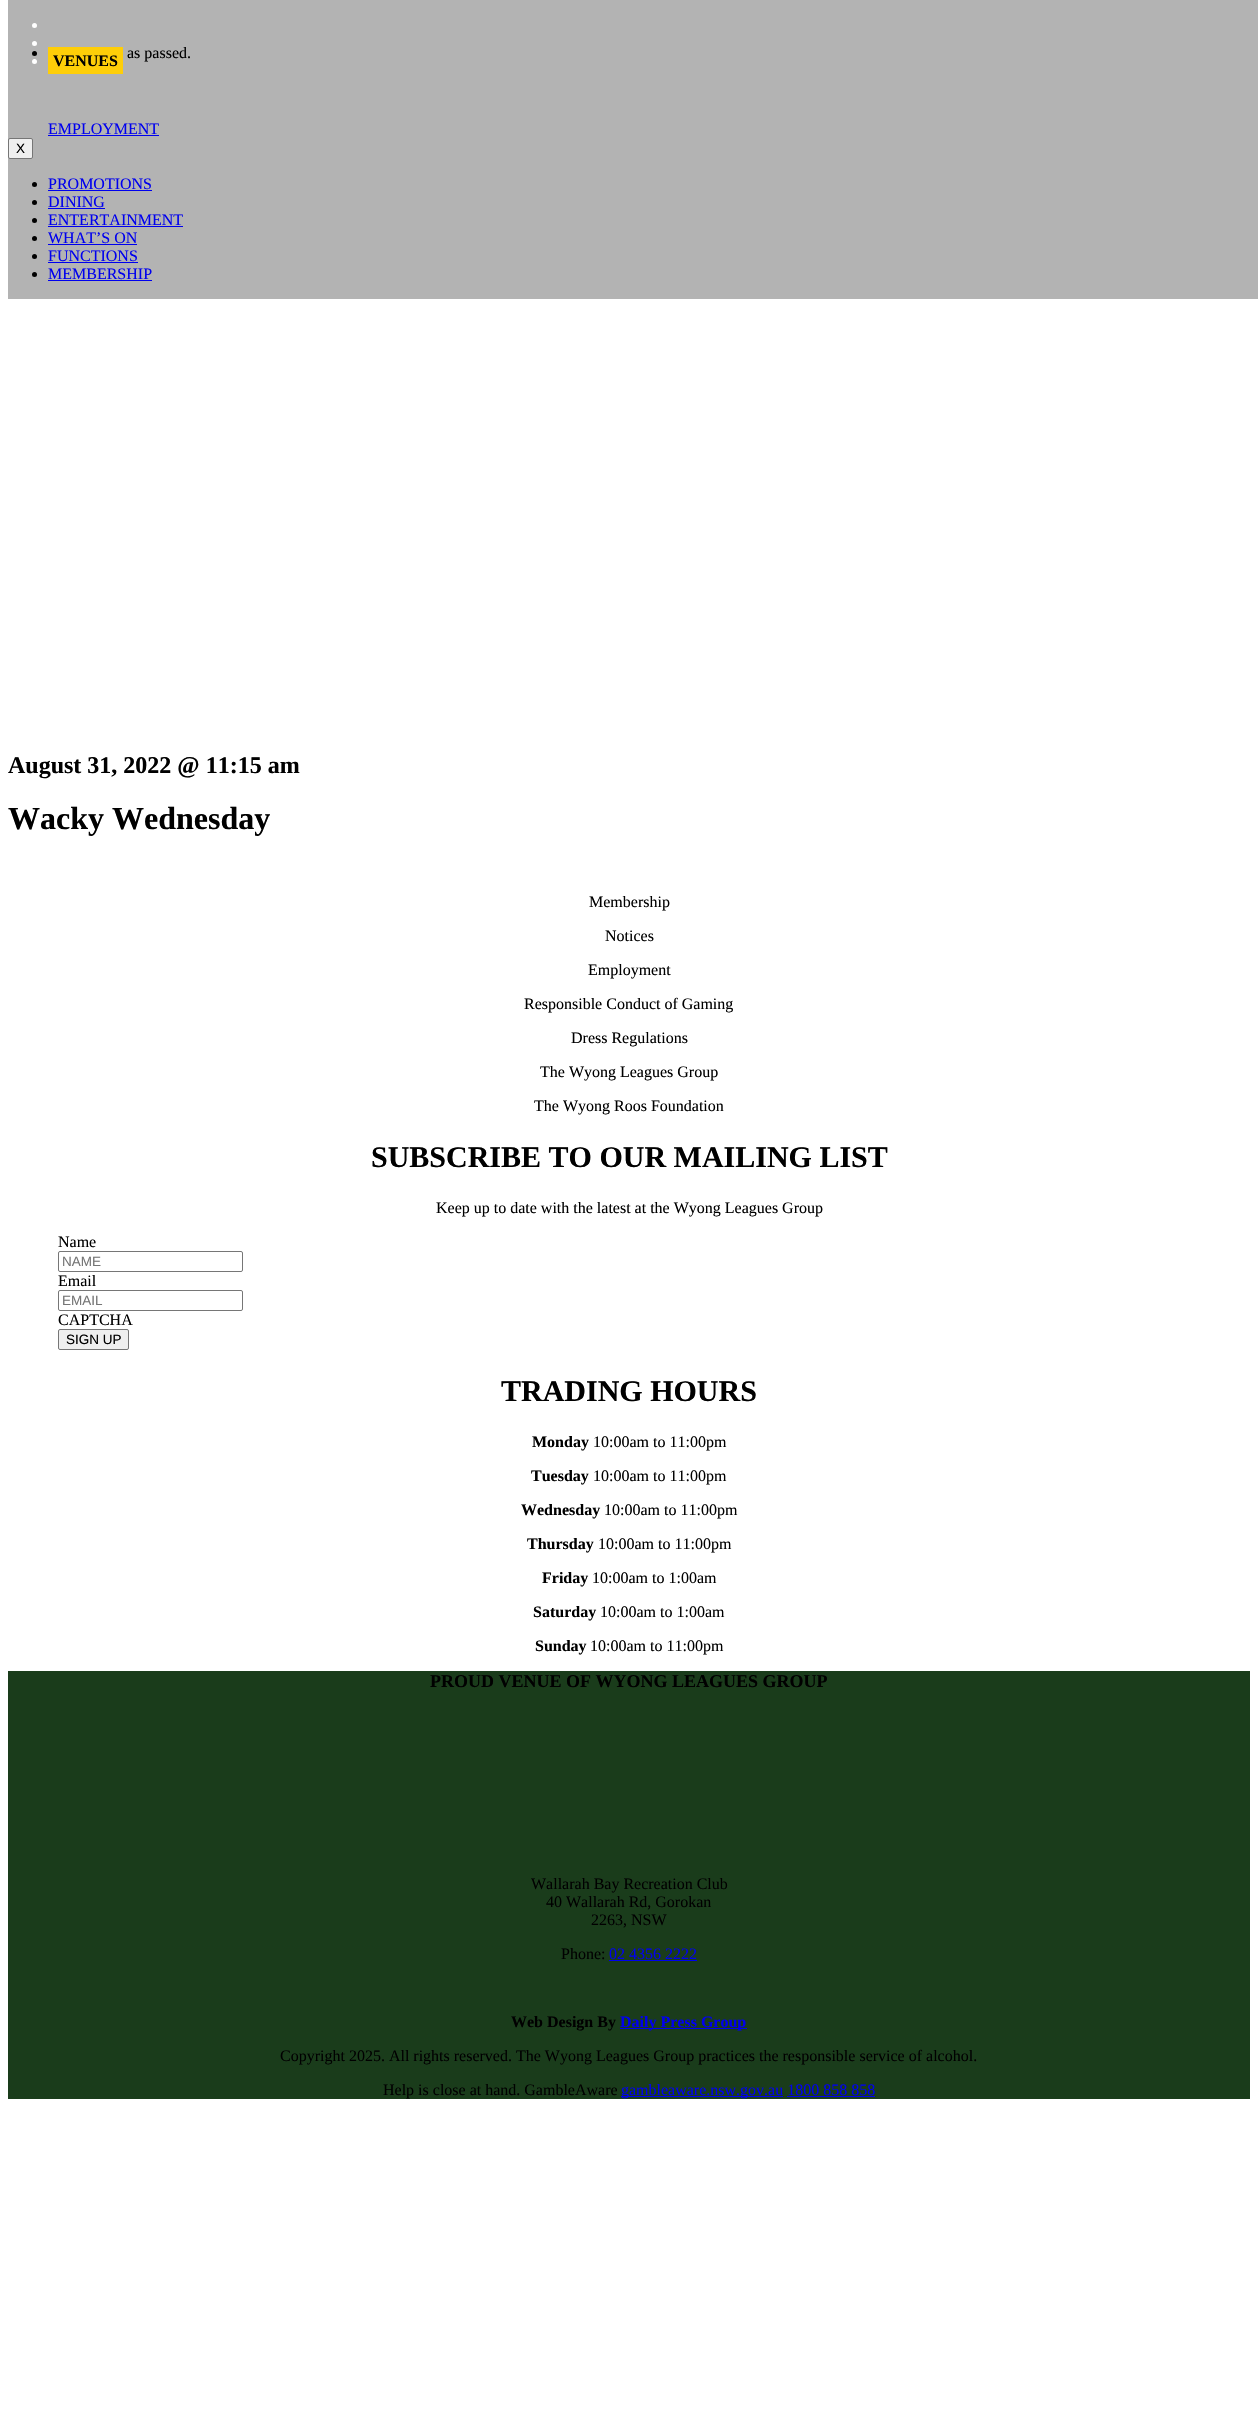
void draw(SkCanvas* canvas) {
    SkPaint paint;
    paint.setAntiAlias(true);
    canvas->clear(0xFFFFFFFF);
    paint.setColor(0xFFB3B3B3);
    canvas->drawRect(SkRect::MakeXYWH(8, 0, 1250, 299), paint);
    paint.setColor(0xFF000000);
    canvas->drawCircle(34.5f, 53.5f, 2.5f, paint);
    SkFont font1(fontMgr->matchFamilyStyle("Liberation Serif", SkFontStyle::Normal()), 16);
    font1.setSubpixel(true);
    canvas->drawString("as passed.", 127, 58, font1, paint);
    SkFont font2(fontMgr->matchFamilyStyle("Liberation Serif", SkFontStyle::Bold()), 24);
    font2.setSubpixel(true);
    canvas->drawString("August 31, 2022 @ 11:15 am", 8, 773, font2, paint);
    SkFont font3(fontMgr->matchFamilyStyle("Liberation Serif", SkFontStyle::Bold()), 32);
    font3.setSubpixel(true);
    canvas->drawString("Wacky Wednesday", 8, 829, font3, paint);
    paint.setColor(0xFFFFFFFF);
    canvas->drawCircle(34.5f, 25.5f, 2.5f, paint);
    canvas->drawCircle(34.5f, 43.5f, 2.5f, paint);
    canvas->drawCircle(34.5f, 61.5f, 2.5f, paint);
    paint.setColor(0xFFFECE08);
    canvas->drawRect(SkRect::MakeXYWH(48, 47, 75, 27), paint);
    SkFont font4(fontMgr->matchFamilyStyle("Liberation Serif", SkFontStyle::Bold()), 16);
    font4.setSubpixel(true);
    paint.setColor(0xFF000000);
    canvas->drawString("VENUES", 53, 66, font4, paint);
    paint.setColor(0xFF0000EE);
    canvas->drawString("EMPLOYMENT", 48, 134, font1, paint);
    canvas->drawRect(SkRect::MakeXYWH(48, 135, 111, 1), paint);
    paint.setColor(0xFFEFEFEF);
    canvas->drawRoundRect(SkRect::MakeXYWH(8.5f, 138.5f, 24, 20), 1.5f, 1.5f, paint);
    paint.setStyle(SkPaint::kStroke_Style);
    paint.setStrokeWidth(1);
    paint.setColor(0xFF767676);
    canvas->drawRoundRect(SkRect::MakeXYWH(8.5f, 138.5f, 24, 20), 1.5f, 1.5f, paint);
    SkFont font5(fontMgr->matchFamilyStyle("Liberation Sans", SkFontStyle::Normal()), 13.5f);
    font5.setSubpixel(true);
    paint.setStyle(SkPaint::kFill_Style);
    paint.setColor(0xFF000000);
    canvas->drawString("X", 16, 153, font5, paint);
    canvas->drawCircle(34.5f, 184.5f, 2.5f, paint);
    paint.setColor(0xFF0000EE);
    canvas->drawString("PROMOTIONS", 48, 189, font1, paint);
    canvas->drawRect(SkRect::MakeXYWH(48, 190, 104, 1), paint);
    paint.setColor(0xFF000000);
    canvas->drawCircle(34.5f, 202.5f, 2.5f, paint);
    paint.setColor(0xFF0000EE);
    canvas->drawString("DINING", 48, 207, font1, paint);
    canvas->drawRect(SkRect::MakeXYWH(48, 208, 57, 1), paint);
    paint.setColor(0xFF000000);
    canvas->drawCircle(34.5f, 220.5f, 2.5f, paint);
    paint.setColor(0xFF0000EE);
    canvas->drawString("ENTERTAINMENT", 48, 225, font1, paint);
    canvas->drawRect(SkRect::MakeXYWH(48, 226, 135, 1), paint);
    paint.setColor(0xFF000000);
    canvas->drawCircle(34.5f, 238.5f, 2.5f, paint);
    paint.setColor(0xFF0000EE);
    canvas->drawString("WHAT’S ON", 48, 243, font1, paint);
    canvas->drawRect(SkRect::MakeXYWH(48, 244, 89, 1), paint);
    paint.setColor(0xFF000000);
    canvas->drawCircle(34.5f, 256.5f, 2.5f, paint);
    paint.setColor(0xFF0000EE);
    canvas->drawString("FUNCTIONS", 48, 261, font1, paint);
    canvas->drawRect(SkRect::MakeXYWH(48, 262, 90, 1), paint);
    paint.setColor(0xFF000000);
    canvas->drawCircle(34.5f, 274.5f, 2.5f, paint);
    paint.setColor(0xFF0000EE);
    canvas->drawString("MEMBERSHIP", 48, 279, font1, paint);
    canvas->drawRect(SkRect::MakeXYWH(48, 280, 104, 1), paint);
    paint.setColor(0xFF000000);
    canvas->drawString("Membership", 589, 907, font1, paint);
    canvas->drawString("Notices", 605, 941, font1, paint);
    canvas->drawString("Employment", 588, 975, font1, paint);
    canvas->drawString("Responsible Conduct of Gaming", 524, 1009, font1, paint);
    canvas->drawString("Dress Regulations", 571, 1043, font1, paint);
    canvas->drawString("The Wyong Leagues Group", 540, 1077, font1, paint);
    canvas->drawString("The Wyong Roos Foundation", 534, 1111, font1, paint);
    SkFont font6(fontMgr->matchFamilyStyle("Liberation Serif", SkFontStyle::Bold()), 30);
    font6.setSubpixel(true);
    canvas->drawString("SUBSCRIBE TO OUR MAILING LIST", 371, 1167, font6, paint);
    canvas->drawString("Keep up to date with the latest at the Wyong Leagues Group", 436, 1213, font1, paint);
    canvas->drawString("Name", 58, 1247, font1, paint);
    paint.setStyle(SkPaint::kStroke_Style);
    paint.setColor(0xFF767676);
    canvas->drawRoundRect(SkRect::MakeXYWH(58.5f, 1251.5f, 184, 20), 1.5f, 1.5f, paint);
    paint.setStyle(SkPaint::kFill_Style);
    paint.setColor(0xFF757575);
    canvas->drawString("NAME", 62, 1266, font5, paint);
    paint.setColor(0xFF000000);
    canvas->drawString("Email", 58, 1286, font1, paint);
    paint.setStyle(SkPaint::kStroke_Style);
    paint.setColor(0xFF767676);
    canvas->drawRoundRect(SkRect::MakeXYWH(58.5f, 1290.5f, 184, 20), 1.5f, 1.5f, paint);
    paint.setStyle(SkPaint::kFill_Style);
    paint.setColor(0xFF757575);
    canvas->drawString("EMAIL", 62, 1305, font5, paint);
    paint.setColor(0xFF000000);
    canvas->drawString("CAPTCHA", 58, 1325, font1, paint);
    paint.setColor(0xFFEFEFEF);
    canvas->drawRoundRect(SkRect::MakeXYWH(58.5f, 1329.5f, 70, 20), 1.5f, 1.5f, paint);
    paint.setStyle(SkPaint::kStroke_Style);
    paint.setColor(0xFF767676);
    canvas->drawRoundRect(SkRect::MakeXYWH(58.5f, 1329.5f, 70, 20), 1.5f, 1.5f, paint);
    paint.setStyle(SkPaint::kFill_Style);
    paint.setColor(0xFF000000);
    canvas->drawString("SIGN UP", 66, 1344, font5, paint);
    canvas->drawString("TRADING HOURS", 501, 1401, font6, paint);
    canvas->drawString("Monday", 532, 1447, font4, paint);
    canvas->drawString("10:00am to 11:00pm", 593, 1447, font1, paint);
    canvas->drawString("Tuesday", 531, 1481, font4, paint);
    canvas->drawString("10:00am to 11:00pm", 593, 1481, font1, paint);
    canvas->drawString("Wednesday", 521, 1515, font4, paint);
    canvas->drawString("10:00am to 11:00pm", 604, 1515, font1, paint);
    canvas->drawString("Thursday", 527, 1549, font4, paint);
    canvas->drawString("10:00am to 11:00pm", 598, 1549, font1, paint);
    canvas->drawString("Friday", 542, 1583, font4, paint);
    canvas->drawString("10:00am to 1:00am", 592, 1583, font1, paint);
    canvas->drawString("Saturday", 533, 1617, font4, paint);
    canvas->drawString("10:00am to 1:00am", 600, 1617, font1, paint);
    canvas->drawString("Sunday", 535, 1651, font4, paint);
    canvas->drawString("10:00am to 11:00pm", 590, 1651, font1, paint);
    paint.setColor(0xFF1A3C1B);
    canvas->drawRect(SkRect::MakeXYWH(8, 1671, 1242, 428), paint);
    SkFont font7(fontMgr->matchFamilyStyle("Liberation Serif", SkFontStyle::Bold()), 18);
    font7.setSubpixel(true);
    paint.setColor(0xFF000000);
    canvas->drawString("PROUD VENUE OF WYONG LEAGUES GROUP", 430, 1687, font7, paint);
    canvas->drawString("Wallarah Bay Recreation Club", 531, 1889, font1, paint);
    canvas->drawString("40 Wallarah Rd, Gorokan", 546, 1907, font1, paint);
    canvas->drawString("2263, NSW", 591, 1925, font1, paint);
    canvas->drawString("Phone:", 561, 1959, font1, paint);
    paint.setColor(0xFF0000EE);
    canvas->drawString("02 4356 2222", 609, 1959, font1, paint);
    canvas->drawRect(SkRect::MakeXYWH(609, 1960, 88, 1), paint);
    paint.setColor(0xFF000000);
    canvas->drawString("Web Design By", 511, 2027, font4, paint);
    paint.setColor(0xFF0000EE);
    canvas->drawRect(SkRect::MakeXYWH(620, 2028, 127, 1), paint);
    canvas->drawString("Daily Press Group", 620, 2027, font4, paint);
    paint.setColor(0xFF000000);
    canvas->drawString("Copyright 2025. All rights reserved. The Wyong Leagues Group practices the responsible service of alcohol.", 280, 2061, font1, paint);
    canvas->drawString("Help is close at hand. GambleAware", 383, 2095, font1, paint);
    paint.setColor(0xFF0000EE);
    canvas->drawRect(SkRect::MakeXYWH(621, 2096, 162, 1), paint);
    canvas->drawString("gambleaware.nsw.gov.au 1800 858 858", 621, 2095, font1, paint);
    canvas->drawRect(SkRect::MakeXYWH(787, 2096, 88, 1), paint);
}
